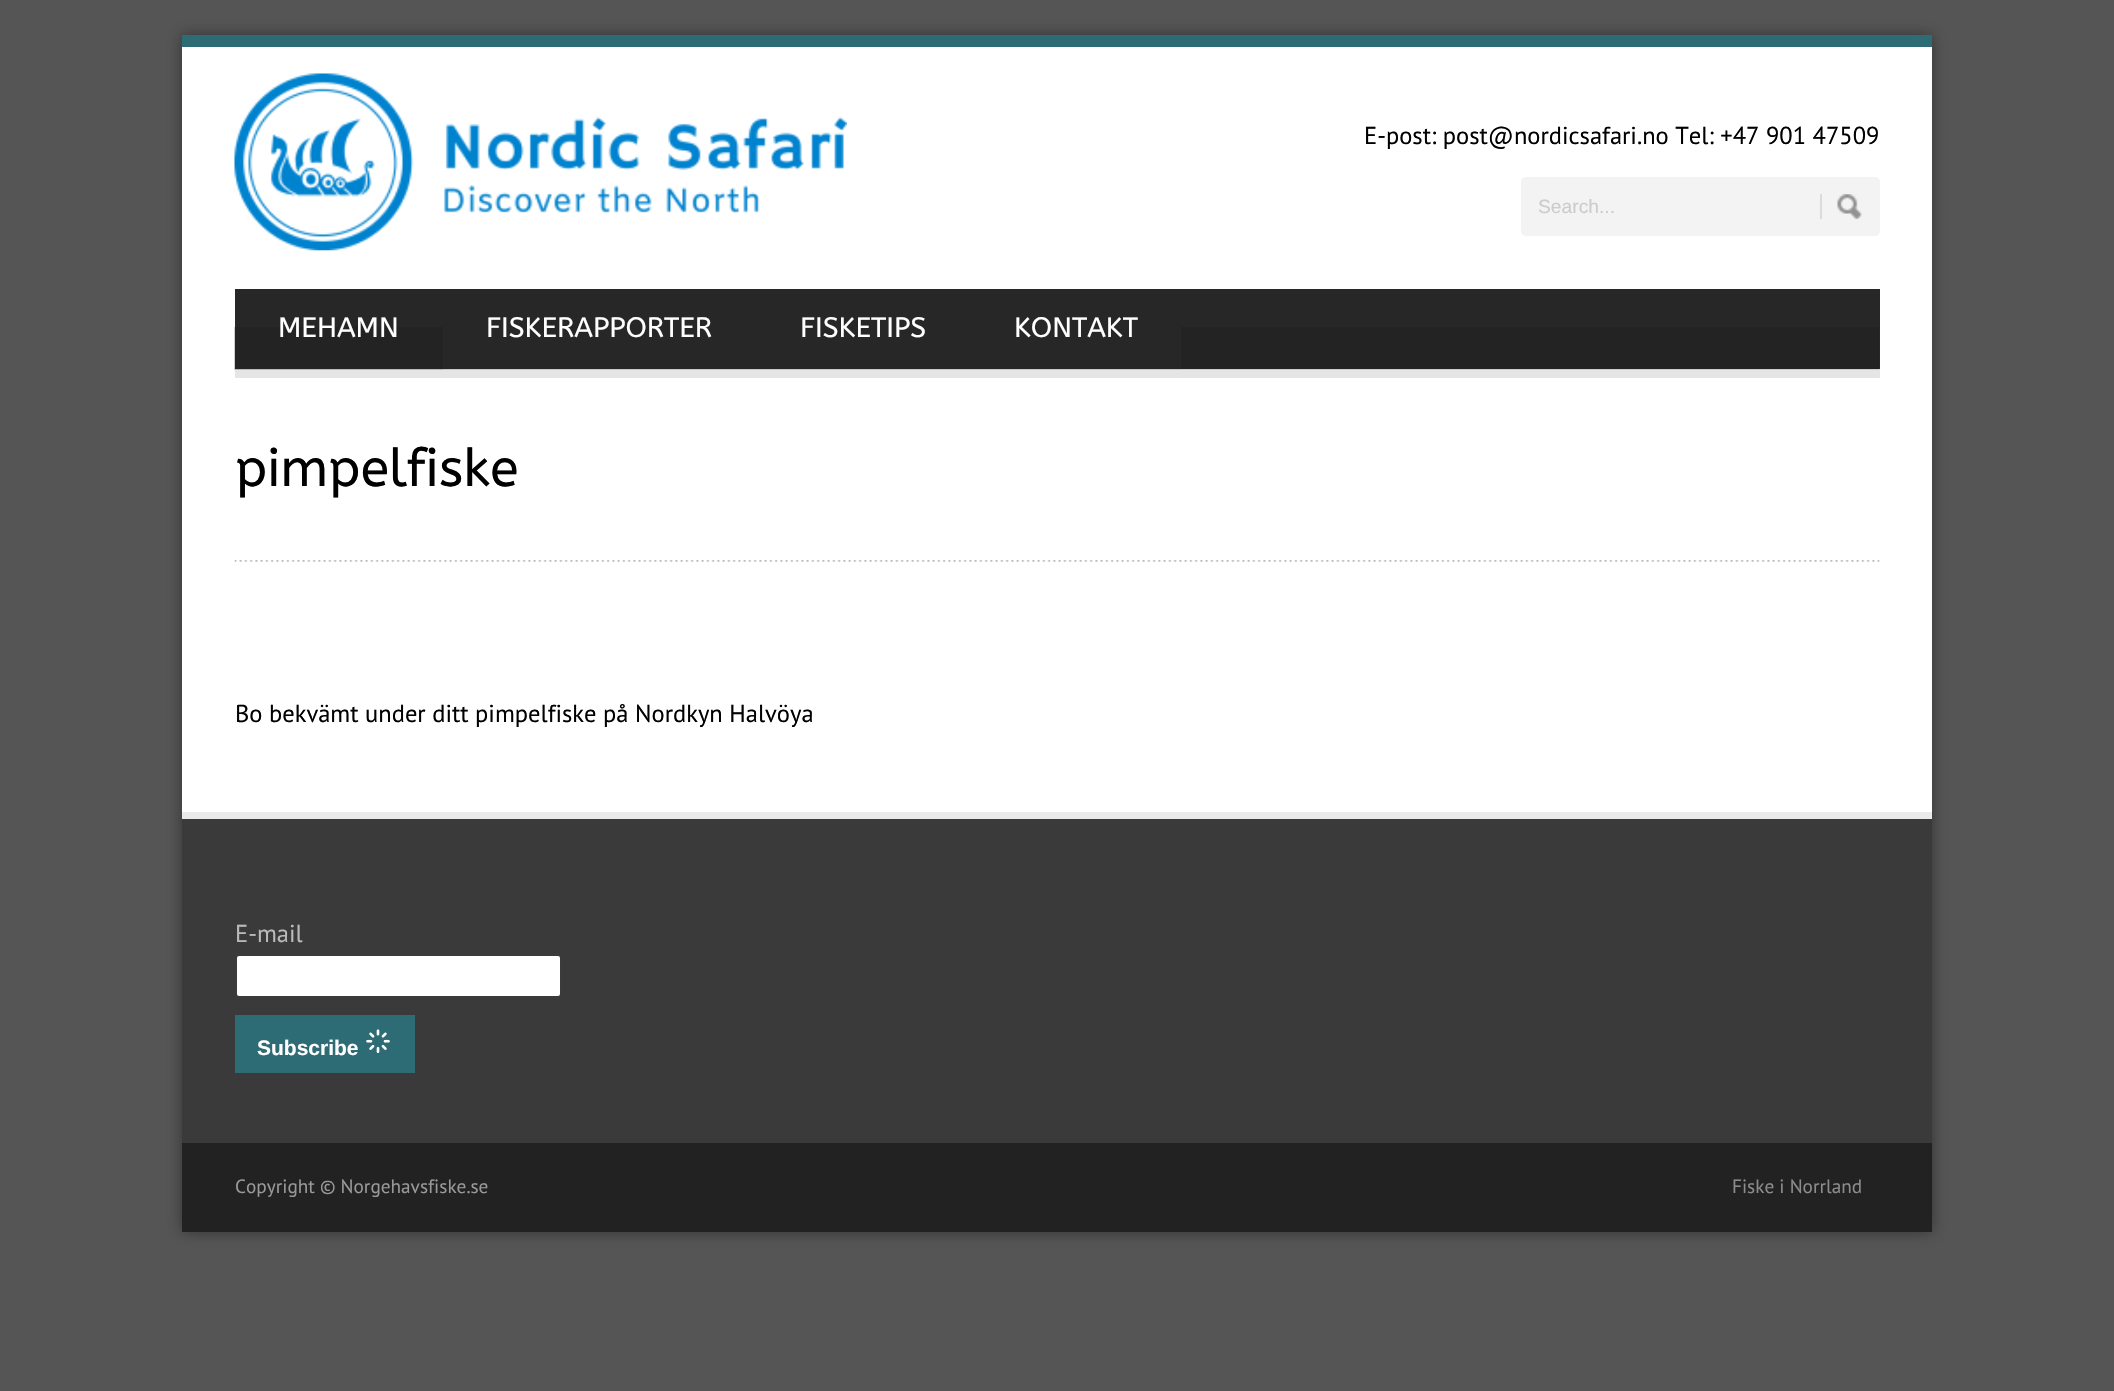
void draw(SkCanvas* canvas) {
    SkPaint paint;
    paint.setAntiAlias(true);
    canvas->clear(0xFF555555);
    paint.setColor(0x66000000);
    paint.setMaskFilter(SkMaskFilter::MakeBlur(kNormal_SkBlurStyle, 7));
    canvas->drawRect(SkRect::MakeXYWH(182, 35, 1750, 1197), paint);
    paint.setMaskFilter(nullptr);
    paint.setColor(0xFF2D6B75);
    canvas->drawRect(SkRect::MakeXYWH(182, 35, 1750, 12), paint);
    paint.setColor(0xFFFFFFFF);
    canvas->drawRect(SkRect::MakeXYWH(182, 47, 1750, 765), paint);
    paint.setColor(0xFFCFCFCF);
    canvas->drawRect(SkRect::MakeXYWH(234, 327, 1, 43), paint);
    canvas->drawImageRect(SkImages::DeferredFromEncodedData(SkData::MakeFromFileName("img1.png")), SkRect::MakeXYWH(234, 73, 613, 178), SkSamplingOptions());
    SkFont font1(fontMgr->matchFamilyStyle("PT Sans", SkFontStyle::Normal()), 24.5f);
    font1.setSubpixel(true);
    paint.setColor(0xFF000000);
    canvas->drawString("E-post: post@nordicsafari.no Tel: +47 901 47509", 1364, 144, font1, paint);
    paint.setColor(0xFFF3F3F3);
    canvas->drawRoundRect(SkRect::MakeXYWH(1521, 177, 359, 59), 5, 5, paint);
    SkFont font2(fontMgr->matchFamilyStyle("Liberation Sans", SkFontStyle::Normal()), 19.25f);
    font2.setSubpixel(true);
    paint.setColor(0xFFCCCCCC);
    canvas->drawString("Search...", 1538, 213, font2, paint);
    canvas->drawImageRect(SkImages::DeferredFromEncodedData(SkData::MakeFromFileName("img2.png")), SkRect::MakeXYWH(1837, 194, 25, 25), SkSamplingOptions());
    paint.setColor(0xFFDBDBDB);
    canvas->drawRect(SkRect::MakeXYWH(1820, 194, 2, 25), paint);
    paint.setColor(0xFF272727);
    canvas->drawRect(SkRect::MakeXYWH(1181, 289, 699, 80), paint);
    paint.setColor(0xFF232323);
    canvas->drawRect(SkRect::MakeXYWH(1181, 327, 698, 42), paint);
    paint.setColor(0xFF272727);
    canvas->drawRect(SkRect::MakeXYWH(235, 289, 208, 38), paint);
    paint.setColor(0xFF232323);
    canvas->drawRect(SkRect::MakeXYWH(235, 327, 208, 42), paint);
    SkFont font3(fontMgr->matchFamilyStyle("ABeeZee", SkFontStyle::Normal()), 28);
    font3.setSubpixel(true);
    paint.setColor(0xFFFFFFFF);
    canvas->drawString("MEHAMN", 278, 337, font3, paint);
    paint.setColor(0xFF272727);
    canvas->drawRect(SkRect::MakeXYWH(443, 289, 738, 80), paint);
    paint.setColor(0xFFE5E5E5);
    canvas->drawRect(SkRect::MakeXYWH(235, 369, 1645, 9), paint);
    paint.setColor(0xFFC8C8C8);
    canvas->drawRect(SkRect::MakeXYWH(443, 369, 526, 1), paint);
    paint.setColor(0xFFFFFFFF);
    canvas->drawString("FISKERAPPORTER", 486, 337, font3, paint);
    canvas->drawString("FISKETIPS", 800, 337, font3, paint);
    paint.setColor(0xFFCECECE);
    canvas->drawRect(SkRect::MakeXYWH(969, 369, 910, 1), paint);
    paint.setColor(0xFFC8C8C8);
    canvas->drawRect(SkRect::MakeXYWH(970, 369, 211, 1), paint);
    paint.setColor(0xFFFFFFFF);
    canvas->drawString("KONTAKT", 1014, 337, font3, paint);
    canvas->drawImageRect(SkImages::DeferredFromEncodedData(SkData::MakeFromFileName("img3.png")), SkRect::MakeXYWH(234, 560, 1646, 2), SkSamplingOptions());
    paint.setColor(0xFFB9B9B9);
    canvas->drawRect(SkRect::MakeXYWH(235, 369, 208, 1), paint);
    SkFont font4(fontMgr->matchFamilyStyle("ABeeZee", SkFontStyle::Normal()), 52.5f);
    font4.setSubpixel(true);
    paint.setColor(0xFF000000);
    canvas->drawString("pimpelfiske", 235, 486, font4, paint);
    canvas->drawString("Bo bekvämt under ditt pimpelfiske på Nordkyn Halvöya", 235, 722, font1, paint);
    paint.setColor(0xFFEAEAEA);
    canvas->drawRect(SkRect::MakeXYWH(182, 812, 1750, 7), paint);
    paint.setColor(0xFF3A3A3A);
    canvas->drawRect(SkRect::MakeXYWH(182, 819, 1750, 324), paint);
    paint.setColor(0xFFBABABA);
    canvas->drawString("E-mail", 235, 942, font1, paint);
    paint.setColor(0xFFFFFFFF);
    canvas->drawRoundRect(SkRect::MakeXYWH(236, 955, 325, 42), 3, 3, paint);
    paint.setStyle(SkPaint::kStroke_Style);
    paint.setStrokeWidth(2);
    paint.setColor(0xFF3B3B3B);
    canvas->drawRoundRect(SkRect::MakeXYWH(236, 955, 325, 42), 3, 3, paint);
    paint.setStyle(SkPaint::kFill_Style);
    paint.setColor(0xFF2D6B75);
    canvas->drawRect(SkRect::MakeXYWH(235, 1015, 180, 58), paint);
    SkFont font5(fontMgr->matchFamilyStyle("Liberation Sans", SkFontStyle::Bold()), 21);
    font5.setSubpixel(true);
    paint.setColor(0xFFFFFFFF);
    canvas->drawString("Subscribe", 257, 1055, font5, paint);
    canvas->drawImageRect(SkImages::DeferredFromEncodedData(SkData::MakeFromFileName("img4.png")), SkRect::MakeXYWH(366, 1029, 24, 24), SkSamplingOptions());
    paint.setColor(0xFF222222);
    canvas->drawRect(SkRect::MakeXYWH(182, 1143, 1750, 89), paint);
    SkFont font6(fontMgr->matchFamilyStyle("PT Sans", SkFontStyle::Normal()), 19.25f);
    font6.setSubpixel(true);
    paint.setColor(0xFF999999);
    canvas->drawString("Copyright © Norgehavsfiske.se", 235, 1193, font6, paint);
    paint.setColor(0xFF8C8C8C);
    canvas->drawString("Fiske i Norrland", 1732, 1193, font6, paint);
}
